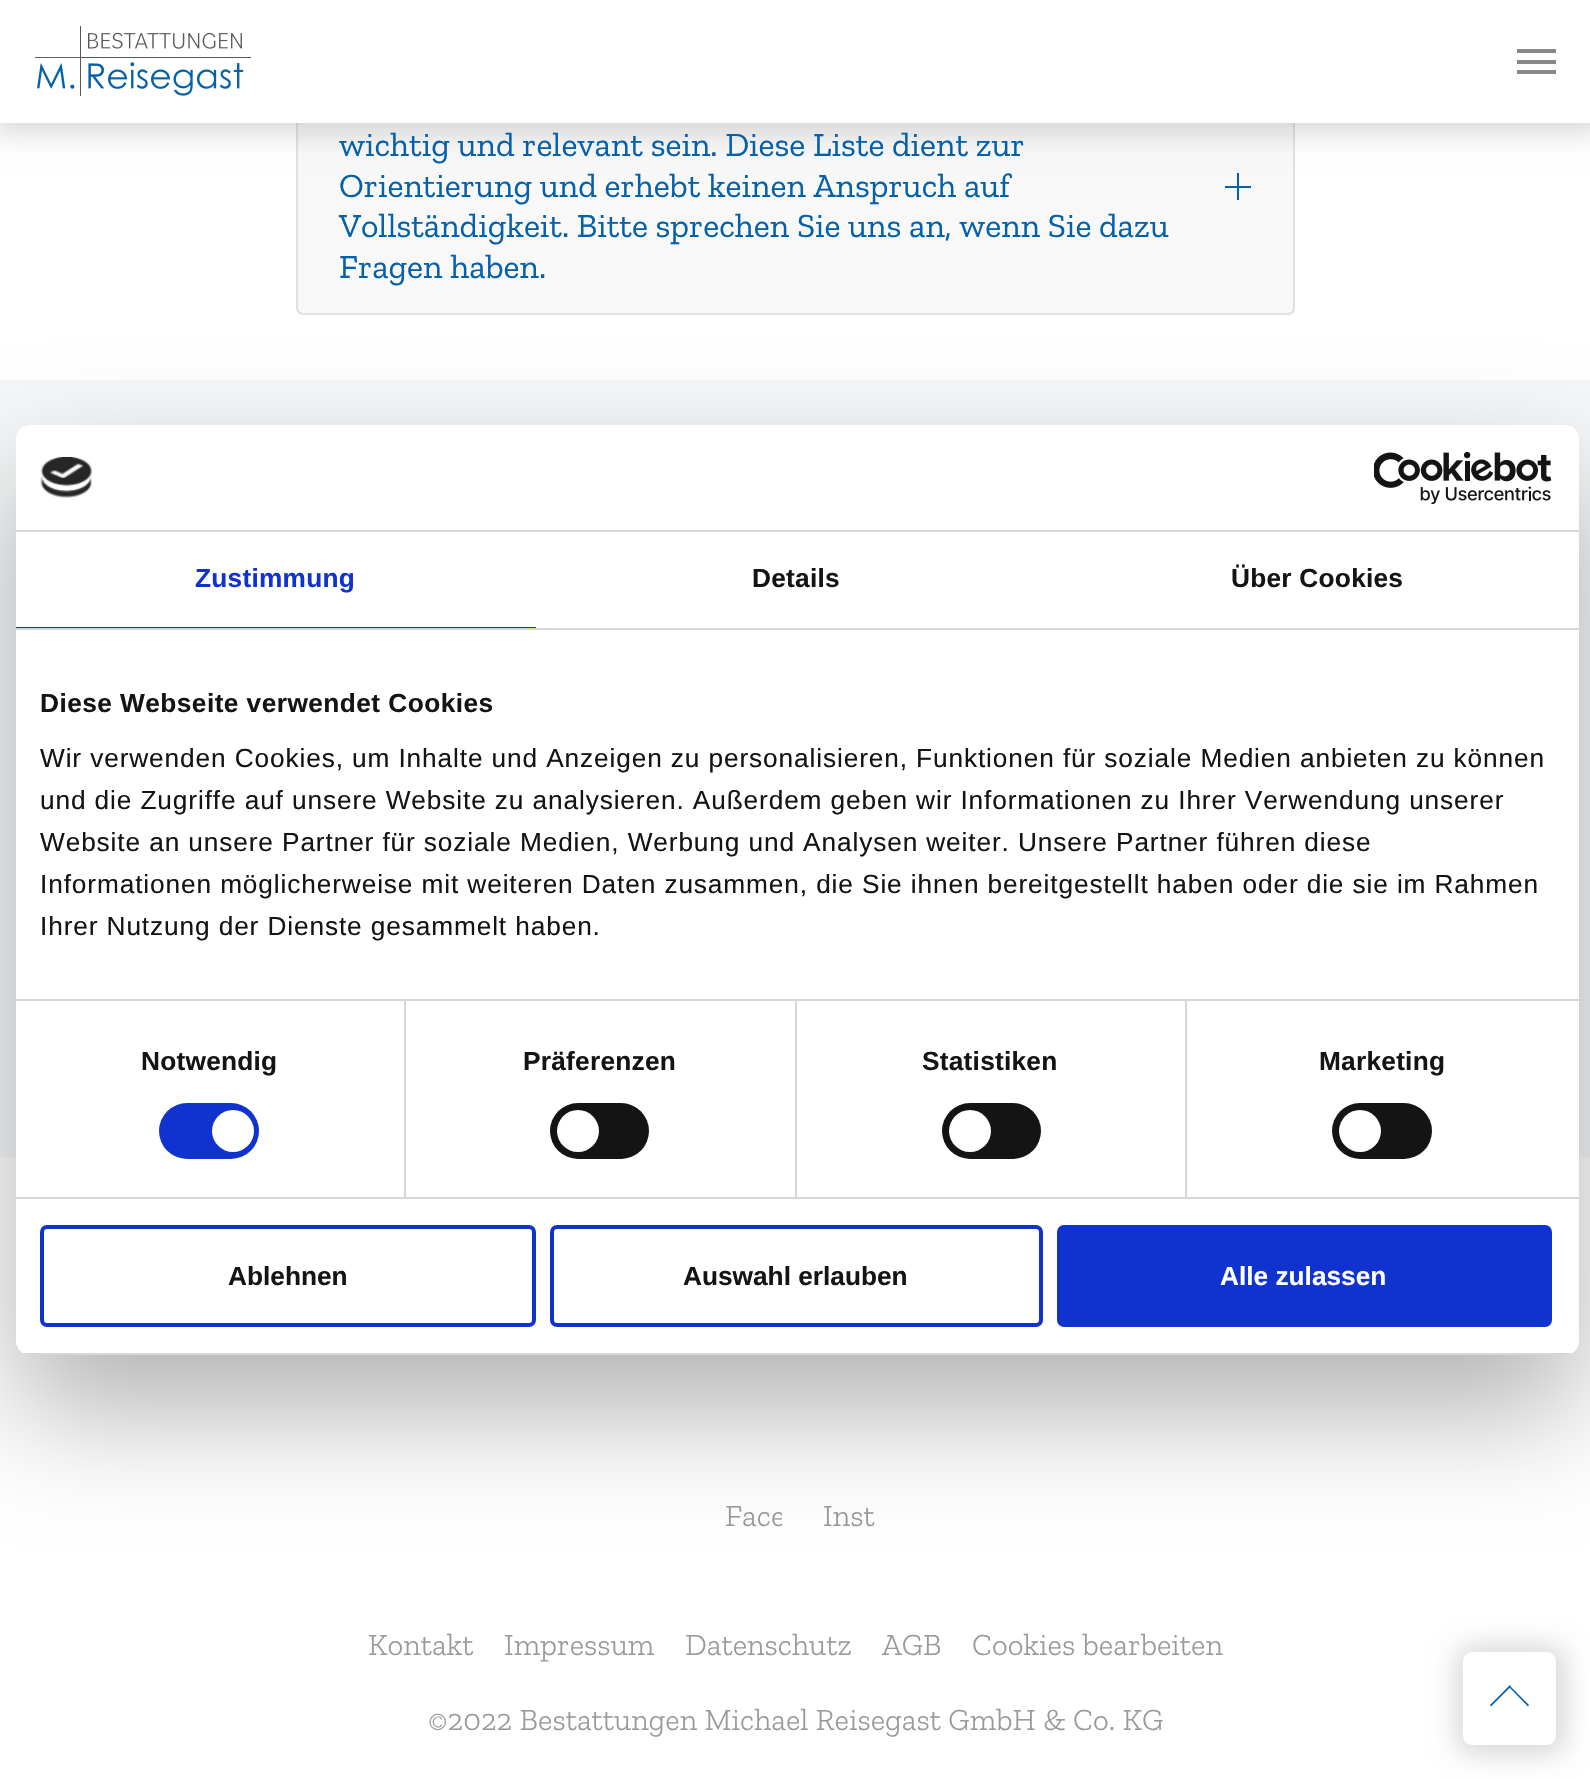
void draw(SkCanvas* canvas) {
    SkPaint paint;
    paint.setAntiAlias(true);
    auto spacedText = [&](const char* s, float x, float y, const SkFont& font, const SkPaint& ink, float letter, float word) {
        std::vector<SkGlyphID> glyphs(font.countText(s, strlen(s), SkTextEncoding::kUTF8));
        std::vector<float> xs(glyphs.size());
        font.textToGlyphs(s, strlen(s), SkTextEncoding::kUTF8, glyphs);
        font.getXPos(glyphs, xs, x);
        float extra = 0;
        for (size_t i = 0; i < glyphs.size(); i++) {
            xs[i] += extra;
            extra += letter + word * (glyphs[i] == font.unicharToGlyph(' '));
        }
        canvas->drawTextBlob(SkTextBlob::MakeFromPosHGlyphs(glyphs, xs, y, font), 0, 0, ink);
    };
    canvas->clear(0xFFFFFFFF);
    paint.setStyle(SkPaint::kStroke_Style);
    paint.setStrokeWidth(2);
    paint.setColor(0xFFE1E1E1);
    canvas->drawRoundRect(SkRect::MakeXYWH(297, 55, 997, 259), 6, 6, paint);
    paint.setStyle(SkPaint::kFill_Style);
    paint.setColor(0x08111111);
    canvas->drawRect(SkRect::MakeXYWH(298, 123, 995, 190), paint);
    paint.setColor(0x26000000);
    paint.setMaskFilter(SkMaskFilter::MakeBlur(kNormal_SkBlurStyle, 13));
    canvas->drawRect(SkRect::MakeXYWH(-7, -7, 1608, 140), paint);
    paint.setMaskFilter(nullptr);
    paint.setColor(0xFFFFFFFF);
    canvas->drawRect(SkRect::MakeXYWH(0, 0, 1590, 123), paint);
    canvas->drawImageRect(SkImages::DeferredFromEncodedData(SkData::MakeFromFileName("img1.png")), SkRect::MakeXYWH(35, 26, 216, 70), SkSamplingOptions());
    paint.setColor(0xFF888888);
    canvas->drawRect(SkRect::MakeXYWH(1517, 60, 39, 4), paint);
    canvas->drawRect(SkRect::MakeXYWH(1517, 49, 39, 4), paint);
    canvas->drawRect(SkRect::MakeXYWH(1517, 70, 39, 4), paint);
    SkFont font1(fontMgr->matchFamilyStyle("Zilla Slab", SkFontStyle::Normal()), 33.9f);
    font1.setSubpixel(true);
    paint.setColor(0xFF0560AA);
    canvas->drawString("wichtig und relevant sein. Diese Liste dient zur", 339, 156, font1, paint);
    canvas->drawString("Orientierung und erhebt keinen Anspruch auf", 339, 197, font1, paint);
    canvas->drawRect(SkRect::MakeXYWH(1225, 186, 26, 2), paint);
    canvas->drawRect(SkRect::MakeXYWH(1237, 173, 2, 27), paint);
    canvas->drawString("Vollständigkeit. Bitte sprechen Sie uns an, wenn Sie dazu", 339, 237, font1, paint);
    canvas->drawString("Fragen haben.", 339, 278, font1, paint);
    paint.setColor(0xFFF5F7F8);
    canvas->drawRect(SkRect::MakeXYWH(0, 380, 1590, 777), paint);
    canvas->save();
    canvas->clipRect(SkRect::MakeXYWH(712, 1468, 70, 70));
    SkFont font2(fontMgr->matchFamilyStyle("Zilla Slab", SkFontStyle(300, SkFontStyle::kNormal_Width, SkFontStyle::kUpright_Slant)), 30.8f);
    font2.setSubpixel(true);
    paint.setColor(0xFF999999);
    canvas->drawString("Face", 725, 1526, font2, paint);
    canvas->restore();
    canvas->drawString("Inst", 823, 1526, font2, paint);
    canvas->drawString("Kontakt", 368, 1655, font2, paint);
    canvas->drawString("Impressum", 504, 1655, font2, paint);
    canvas->drawString("Datenschutz", 685, 1655, font2, paint);
    canvas->drawString("AGB", 882, 1655, font2, paint);
    canvas->drawString("Cookies bearbeiten", 972, 1655, font2, paint);
    canvas->drawString("©2022 Bestattungen Michael Reisegast GmbH & Co. KG", 428, 1730, font2, paint);
    paint.setColor(0x26000000);
    paint.setMaskFilter(SkMaskFilter::MakeBlur(kNormal_SkBlurStyle, 13));
    canvas->drawRoundRect(SkRect::MakeXYWH(1456, 1645, 110, 110), 18, 18, paint);
    paint.setMaskFilter(nullptr);
    paint.setColor(0xFFFFFFFF);
    canvas->drawRoundRect(SkRect::MakeXYWH(1463, 1652, 93, 93), 9, 9, paint);
    paint.setColor(0xFF0560AA);
    canvas->drawPath(SkPathBuilder().moveTo(1509.5f, 1685.5f).lineTo(1529, 1705).lineTo(1528, 1706.5f).lineTo(1508.5f, 1686.5f).close().detach(), paint);
    canvas->drawPath(SkPathBuilder().moveTo(1509.5f, 1685.5f).lineTo(1511, 1686.5f).lineTo(1491, 1706.5f).lineTo(1490, 1705).close().detach(), paint);
    paint.setColor(0x4D000000);
    paint.setMaskFilter(SkMaskFilter::MakeBlur(kNormal_SkBlurStyle, 59.5f));
    canvas->drawRoundRect(SkRect::MakeXYWH(16, 481, 1563, 930), 14, 14, paint);
    paint.setMaskFilter(nullptr);
    paint.setColor(0xFFFFFFFF);
    canvas->drawRoundRect(SkRect::MakeXYWH(16, 425, 1563, 930), 14, 14, paint);
    paint.setColor(0xFFD6D6D6);
    canvas->drawRect(SkRect::MakeXYWH(16, 530, 1563, 2), paint);
    canvas->drawImageRect(SkImages::DeferredFromEncodedData(SkData::MakeFromFileName("img2.png")), SkRect::MakeXYWH(40, 456, 53, 42), SkSamplingOptions());
    canvas->drawImageRect(SkImages::DeferredFromEncodedData(SkData::MakeFromFileName("img3.png")), SkRect::MakeXYWH(1374, 452, 178, 52), SkSamplingOptions());
    canvas->drawRect(SkRect::MakeXYWH(16, 628, 1563, 2), paint);
    paint.setColor(0xFF1032CF);
    canvas->drawRect(SkRect::MakeXYWH(16, 627, 520, 1), paint);
    SkFont font3(fontMgr->matchFamilyStyle("Liberation Sans", SkFontStyle::Bold()), 26.25f);
    font3.setSubpixel(true);
    spacedText("Zustimmung", 195, 587, font3, paint, 0.25f, 0);
    paint.setColor(0xFF141414);
    spacedText("Details", 752, 587, font3, paint, 0.25f, 0);
    spacedText("Über Cookies", 1231, 587, font3, paint, 0.25f, 0);
    paint.setColor(0xFFD6D6D6);
    canvas->drawRect(SkRect::MakeXYWH(16, 999, 1563, 2), paint);
    paint.setColor(0xFF141414);
    spacedText("Diese Webseite verwendet Cookies", 40, 712, font3, paint, 0.45f, 0);
    SkFont font4(fontMgr->matchFamilyStyle("Liberation Sans", SkFontStyle::Normal()), 26.25f);
    font4.setSubpixel(true);
    spacedText("Wir verwenden Cookies, um Inhalte und Anzeigen zu personalisieren, Funktionen für soziale Medien anbieten zu können", 40, 767, font4, paint, 0.88f, 0);
    spacedText("und die Zugriffe auf unsere Website zu analysieren. Außerdem geben wir Informationen zu Ihrer Verwendung unserer", 40, 809, font4, paint, 0.88f, 0);
    spacedText("Website an unsere Partner für soziale Medien, Werbung und Analysen weiter. Unsere Partner führen diese", 40, 851, font4, paint, 0.88f, 0);
    spacedText("Informationen möglicherweise mit weiteren Daten zusammen, die Sie ihnen bereitgestellt haben oder die sie im Rahmen", 40, 893, font4, paint, 0.88f, 0);
    spacedText("Ihrer Nutzung der Dienste gesammelt haben.", 40, 935, font4, paint, 0.88f, 0);
    paint.setColor(0xFFD6D6D6);
    canvas->drawRect(SkRect::MakeXYWH(16, 1197, 1563, 2), paint);
    canvas->drawRect(SkRect::MakeXYWH(404, 1001, 2, 196), paint);
    paint.setColor(0xFF141414);
    spacedText("Notwendig", 141, 1070, font3, paint, 0.25f, 0);
    paint.setColor(0xFF1032CF);
    canvas->drawRoundRect(SkRect::MakeXYWH(159, 1103, 100, 56), 28, 28, paint);
    paint.setColor(0xFFFFFFFF);
    canvas->drawCircle(233, 1131, 21, paint);
    paint.setColor(0xFFD6D6D6);
    canvas->drawRect(SkRect::MakeXYWH(795, 1001, 2, 196), paint);
    paint.setColor(0xFF141414);
    spacedText("Präferenzen", 523, 1070, font3, paint, 0.25f, 0);
    canvas->drawRoundRect(SkRect::MakeXYWH(550, 1103, 99, 56), 28, 28, paint);
    paint.setColor(0xFFFFFFFF);
    canvas->drawCircle(578, 1131, 21, paint);
    paint.setColor(0xFFD6D6D6);
    canvas->drawRect(SkRect::MakeXYWH(1185, 1001, 2, 196), paint);
    paint.setColor(0xFF141414);
    spacedText("Statistiken", 922, 1070, font3, paint, 0.25f, 0);
    canvas->drawRoundRect(SkRect::MakeXYWH(942, 1103, 99, 56), 28, 28, paint);
    paint.setColor(0xFFFFFFFF);
    canvas->drawCircle(970, 1131, 21, paint);
    paint.setColor(0xFF141414);
    spacedText("Marketing", 1319, 1070, font3, paint, 0.25f, 0);
    canvas->drawRoundRect(SkRect::MakeXYWH(1332, 1103, 100, 56), 28, 28, paint);
    paint.setColor(0xFFFFFFFF);
    canvas->drawCircle(1360, 1131, 21, paint);
    canvas->save();
    canvas->clipPath(SkPathBuilder().moveTo(30, 425).lineTo(1565, 425).cubicTo(1572.5f, 425, 1579, 431.5f, 1579, 439).lineTo(1579, 1341).cubicTo(1579, 1348.5f, 1572.5f, 1355, 1565, 1355).lineTo(30, 1355).cubicTo(22.5f, 1355, 16, 1348.5f, 16, 1341).lineTo(16, 439).cubicTo(16, 431.5f, 22.5f, 425, 30, 425).close().detach(), true);
    paint.setColor(0xFFD6D6D6);
    canvas->drawRect(SkRect::MakeXYWH(16, 1353, 1563, 2), paint);
    canvas->restore();
    paint.setStyle(SkPaint::kStroke_Style);
    paint.setStrokeWidth(4);
    paint.setColor(0xFF1032CF);
    canvas->drawRoundRect(SkRect::MakeXYWH(42, 1227, 492, 98), 5, 5, paint);
    paint.setStyle(SkPaint::kFill_Style);
    paint.setColor(0xFF141414);
    canvas->drawString("Ablehnen", 228, 1285, font3, paint);
    paint.setStyle(SkPaint::kStroke_Style);
    paint.setColor(0xFF1032CF);
    canvas->drawRoundRect(SkRect::MakeXYWH(552, 1227, 489, 98), 5, 5, paint);
    paint.setStyle(SkPaint::kFill_Style);
    paint.setColor(0xFF141414);
    canvas->drawString("Auswahl erlauben", 683, 1285, font3, paint);
    paint.setColor(0xFF1032CF);
    canvas->drawRoundRect(SkRect::MakeXYWH(1059, 1227, 491, 98), 5, 5, paint);
    paint.setStyle(SkPaint::kStroke_Style);
    canvas->drawRoundRect(SkRect::MakeXYWH(1059, 1227, 491, 98), 5, 5, paint);
    paint.setStyle(SkPaint::kFill_Style);
    paint.setColor(0xFFFFFFFF);
    canvas->drawString("Alle zulassen", 1220, 1285, font3, paint);
}
